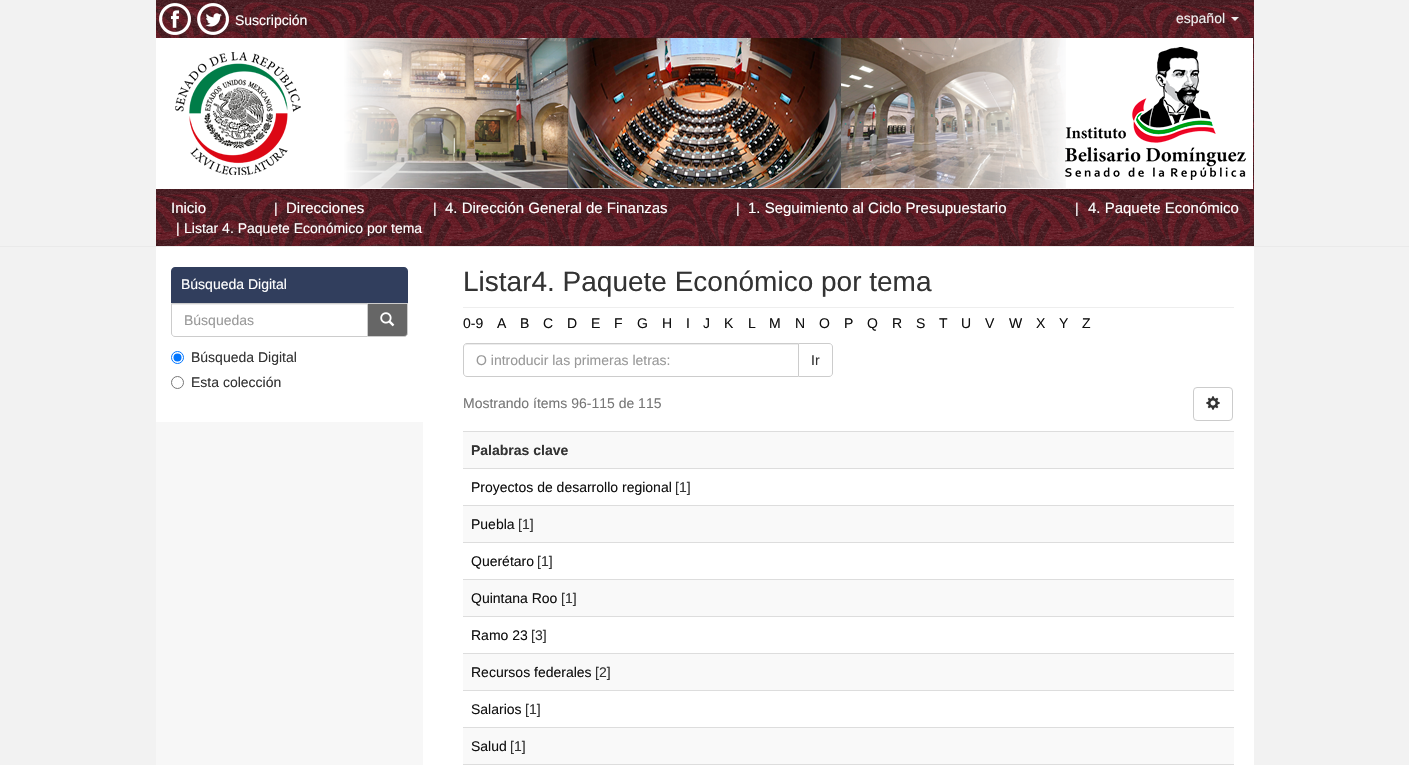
void draw(SkCanvas* canvas) {
    SkPaint paint;
    paint.setAntiAlias(true);
    canvas->clear(0xFFF2F2F2);
    canvas->drawImageRect(SkImages::DeferredFromEncodedData(SkData::MakeFromFileName("img1.png")), SkRect::MakeXYWH(156, 0, 1098, 38), SkSamplingOptions());
    canvas->drawImageRect(SkImages::DeferredFromEncodedData(SkData::MakeFromFileName("img2.png")), SkRect::MakeXYWH(159, 3, 32, 32), SkSamplingOptions());
    canvas->drawImageRect(SkImages::DeferredFromEncodedData(SkData::MakeFromFileName("img3.png")), SkRect::MakeXYWH(197, 3, 32, 32), SkSamplingOptions());
    SkFont font1(fontMgr->matchFamilyStyle("Liberation Sans", SkFontStyle::Normal()), 14);
    font1.setSubpixel(true);
    paint.setColor(0xFFFFFFFF);
    canvas->drawString("Suscripción", 235, 25, font1, paint);
    paint.setColor(0xFFEEEEEE);
    canvas->drawString("español", 1176, 23, font1, paint);
    canvas->drawPath(SkPathBuilder().moveTo(1231, 17).lineTo(1239, 17).lineTo(1235, 21).close().detach(), paint);
    canvas->drawImageRect(SkImages::DeferredFromEncodedData(SkData::MakeFromFileName("img4.png")), SkRect::MakeXYWH(1253, 38, 1, 151), SkSamplingOptions());
    canvas->drawImageRect(SkImages::DeferredFromEncodedData(SkData::MakeFromFileName("img5.png")), SkRect::MakeXYWH(156, 38, 1097, 151), SkSamplingOptions());
    paint.setColor(0xFFEAEAEA);
    canvas->drawRect(SkRect::MakeXYWH(0, 246, 1409, 1), paint);
    canvas->drawImageRect(SkImages::DeferredFromEncodedData(SkData::MakeFromFileName("img6.png")), SkRect::MakeXYWH(156, 189, 1098, 57), SkSamplingOptions());
    canvas->drawImageRect(SkImages::DeferredFromEncodedData(SkData::MakeFromFileName("img7.png")), SkRect::MakeXYWH(156, 189, 1098, 57), SkSamplingOptions());
    SkFont font2(fontMgr->matchFamilyStyle("Liberation Sans", SkFontStyle::Normal()), 15);
    font2.setSubpixel(true);
    paint.setColor(0xFFFFFFFF);
    canvas->drawString("Inicio", 171, 213, font2, paint);
    canvas->drawString("|", 274, 213, font1, paint);
    canvas->drawString("Direcciones", 286, 213, font2, paint);
    canvas->drawString("|", 433, 213, font1, paint);
    canvas->drawString("4. Dirección General de Finanzas", 445, 213, font2, paint);
    canvas->drawString("|", 736, 213, font1, paint);
    canvas->drawString("1. Seguimiento al Ciclo Presupuestario", 748, 213, font2, paint);
    canvas->drawString("|", 1075, 213, font1, paint);
    canvas->drawString("4. Paquete Económico", 1088, 213, font2, paint);
    canvas->drawString("|", 176, 233, font1, paint);
    canvas->drawString("Listar 4. Paquete Económico por tema", 184, 233, font1, paint);
    paint.setColor(0xFFF7F7F7);
    canvas->drawRect(SkRect::MakeXYWH(156, 422, 267, 343), paint);
    paint.setColor(0xFFFFFFFF);
    canvas->drawRect(SkRect::MakeXYWH(156, 247, 267, 175), paint);
    paint.setColor(0xFF313E5D);
    canvas->drawPath(SkPathBuilder().moveTo(175, 267).lineTo(404, 267).cubicTo(406, 267, 408, 269, 408, 271).lineTo(408, 303).lineTo(171, 303).lineTo(171, 271).cubicTo(171, 269, 173, 267, 175, 267).close().detach(), paint);
    paint.setColor(0xFFFFFFFF);
    canvas->drawString("Búsqueda Digital", 181, 289, font1, paint);
    paint.setColor(0xFF666666);
    canvas->drawPath(SkPathBuilder().moveTo(367.5f, 303.5f).lineTo(407.5f, 303.5f).lineTo(407.5f, 333).cubicTo(407.5f, 335, 406, 336.5f, 404, 336.5f).lineTo(367.5f, 336.5f).close().detach(), paint);
    paint.setStyle(SkPaint::kStroke_Style);
    paint.setStrokeWidth(1);
    paint.setColor(0xFFCCCCCC);
    canvas->drawPath(SkPathBuilder().moveTo(367.5f, 303.5f).lineTo(407.5f, 303.5f).lineTo(407.5f, 333).cubicTo(407.5f, 335, 406, 336.5f, 404, 336.5f).lineTo(367.5f, 336.5f).close().detach(), paint);
    paint.setStyle(SkPaint::kFill_Style);
    paint.setColor(0xFFFFFFFF);
    canvas->drawPath(SkPathBuilder().moveTo(171, 303).lineTo(368, 303).lineTo(368, 337).lineTo(175, 337).cubicTo(173, 337, 171, 335, 171, 333).close().detach(), paint);
    paint.setColor(0xFFECECEC);
    canvas->drawRect(SkRect::MakeXYWH(172, 304, 195, 1), paint);
    paint.setStyle(SkPaint::kStroke_Style);
    paint.setColor(0xFFCCCCCC);
    canvas->drawPath(SkPathBuilder().moveTo(171.5f, 303.5f).lineTo(367.5f, 303.5f).lineTo(367.5f, 336.5f).lineTo(175, 336.5f).cubicTo(173, 336.5f, 171.5f, 335, 171.5f, 333).close().detach(), paint);
    paint.setStyle(SkPaint::kFill_Style);
    paint.setColor(0xFF999999);
    canvas->drawString("Búsquedas", 184, 325, font1, paint);
    canvas->drawImageRect(SkImages::DeferredFromEncodedData(SkData::MakeFromFileName("img8.png")), SkRect::MakeXYWH(380, 312, 15, 15), SkSamplingOptions());
    paint.setStyle(SkPaint::kStroke_Style);
    paint.setColor(0xFF0075FF);
    canvas->drawCircle(177.5f, 357.5f, 6, paint);
    paint.setStyle(SkPaint::kFill_Style);
    canvas->drawCircle(177.5f, 357.5f, 4, paint);
    paint.setColor(0xFF333333);
    canvas->drawString("Búsqueda Digital", 191, 362, font1, paint);
    paint.setStyle(SkPaint::kStroke_Style);
    paint.setColor(0xFF767676);
    canvas->drawCircle(177.5f, 382.5f, 6, paint);
    paint.setStyle(SkPaint::kFill_Style);
    paint.setColor(0xFF333333);
    canvas->drawString("Esta colección", 191, 387, font1, paint);
    paint.setColor(0xFFFFFFFF);
    canvas->drawRect(SkRect::MakeXYWH(423, 247, 831, 518), paint);
    paint.setColor(0xFFEEEEEE);
    canvas->drawRect(SkRect::MakeXYWH(463, 307, 771, 1), paint);
    SkFont font3(fontMgr->matchFamilyStyle("Liberation Sans", SkFontStyle::Normal()), 28);
    font3.setSubpixel(true);
    paint.setColor(0xFF333333);
    canvas->drawString("Listar4. Paquete Económico por tema", 463, 291, font3, paint);
    paint.setColor(0xFF111111);
    canvas->drawString("0-9", 463, 328, font1, paint);
    canvas->drawString("A", 497, 328, font1, paint);
    canvas->drawString("B", 520, 328, font1, paint);
    canvas->drawString("C", 543, 328, font1, paint);
    canvas->drawString("D", 567, 328, font1, paint);
    canvas->drawString("E", 591, 328, font1, paint);
    canvas->drawString("F", 614, 328, font1, paint);
    canvas->drawString("G", 637, 328, font1, paint);
    canvas->drawString("H", 662, 328, font1, paint);
    canvas->drawString("I", 686, 328, font1, paint);
    canvas->drawString("J", 703, 328, font1, paint);
    canvas->drawString("K", 724, 328, font1, paint);
    canvas->drawString("L", 748, 328, font1, paint);
    canvas->drawString("M", 769, 328, font1, paint);
    canvas->drawString("N", 795, 328, font1, paint);
    canvas->drawString("O", 819, 328, font1, paint);
    canvas->drawString("P", 844, 328, font1, paint);
    canvas->drawString("Q", 867, 328, font1, paint);
    canvas->drawString("R", 892, 328, font1, paint);
    canvas->drawString("S", 916, 328, font1, paint);
    canvas->drawString("T", 939, 328, font1, paint);
    canvas->drawString("U", 961, 328, font1, paint);
    canvas->drawString("V", 985, 328, font1, paint);
    canvas->drawString("W", 1009, 328, font1, paint);
    canvas->drawString("X", 1036, 328, font1, paint);
    canvas->drawString("Y", 1059, 328, font1, paint);
    canvas->drawString("Z", 1082, 328, font1, paint);
    paint.setStyle(SkPaint::kStroke_Style);
    paint.setColor(0xFFCCCCCC);
    canvas->drawPath(SkPathBuilder().moveTo(798.5f, 343.5f).lineTo(829, 343.5f).cubicTo(831, 343.5f, 832.5f, 345, 832.5f, 347).lineTo(832.5f, 373).cubicTo(832.5f, 375, 831, 376.5f, 829, 376.5f).lineTo(798.5f, 376.5f).close().detach(), paint);
    paint.setStyle(SkPaint::kFill_Style);
    paint.setColor(0xFFFFFFFF);
    canvas->drawPath(SkPathBuilder().moveTo(467, 343).lineTo(799, 343).lineTo(799, 377).lineTo(467, 377).cubicTo(465, 377, 463, 375, 463, 373).lineTo(463, 347).cubicTo(463, 345, 465, 343, 467, 343).close().detach(), paint);
    paint.setColor(0xFFECECEC);
    canvas->drawPath(SkPathBuilder().moveTo(467, 345).lineTo(798, 345).lineTo(798, 344).lineTo(467, 344).cubicTo(465, 344, 464, 346, 464, 348).cubicTo(464, 346, 465, 345, 467, 345).close().detach(), paint);
    paint.setStyle(SkPaint::kStroke_Style);
    paint.setColor(0xFFCCCCCC);
    canvas->drawPath(SkPathBuilder().moveTo(467, 343.5f).lineTo(798.5f, 343.5f).lineTo(798.5f, 376.5f).lineTo(467, 376.5f).cubicTo(465, 376.5f, 463.5f, 375, 463.5f, 373).lineTo(463.5f, 347).cubicTo(463.5f, 345, 465, 343.5f, 467, 343.5f).close().detach(), paint);
    paint.setStyle(SkPaint::kFill_Style);
    paint.setColor(0xFF999999);
    canvas->drawString("O introducir las primeras letras:", 476, 365, font1, paint);
    paint.setColor(0xFF333333);
    canvas->drawString("Ir", 811, 365, font1, paint);
    paint.setColor(0xFF777777);
    canvas->drawString("Mostrando ítems 96-115 de 115", 463, 408, font1, paint);
    paint.setStyle(SkPaint::kStroke_Style);
    paint.setColor(0xFFCCCCCC);
    canvas->drawRoundRect(SkRect::MakeXYWH(1193.5f, 387.5f, 39, 33), 3.5f, 3.5f, paint);
    canvas->drawImageRect(SkImages::DeferredFromEncodedData(SkData::MakeFromFileName("img9.png")), SkRect::MakeXYWH(1206, 396, 14, 14), SkSamplingOptions());
    paint.setStyle(SkPaint::kFill_Style);
    paint.setColor(0xFFF9F9F9);
    canvas->drawRect(SkRect::MakeXYWH(463, 432, 771, 36), paint);
    paint.setColor(0xFFDDDDDD);
    canvas->drawRect(SkRect::MakeXYWH(463, 431, 771, 1), paint);
    SkFont font4(fontMgr->matchFamilyStyle("Liberation Sans", SkFontStyle::Bold()), 14);
    font4.setSubpixel(true);
    paint.setColor(0xFF333333);
    canvas->drawString("Palabras clave", 471, 455, font4, paint);
    paint.setColor(0xFFDDDDDD);
    canvas->drawRect(SkRect::MakeXYWH(463, 468, 771, 1), paint);
    paint.setColor(0xFF111111);
    canvas->drawString("Proyectos de desarrollo regional", 471, 492, font1, paint);
    paint.setColor(0xFF333333);
    canvas->drawString("[1]", 675, 492, font1, paint);
    paint.setColor(0xFFF9F9F9);
    canvas->drawRect(SkRect::MakeXYWH(463, 506, 771, 36), paint);
    paint.setColor(0xFFDDDDDD);
    canvas->drawRect(SkRect::MakeXYWH(463, 505, 771, 1), paint);
    paint.setColor(0xFF111111);
    canvas->drawString("Puebla", 471, 529, font1, paint);
    paint.setColor(0xFF333333);
    canvas->drawString("[1]", 518, 529, font1, paint);
    paint.setColor(0xFFDDDDDD);
    canvas->drawRect(SkRect::MakeXYWH(463, 542, 771, 1), paint);
    paint.setColor(0xFF111111);
    canvas->drawString("Querétaro", 471, 566, font1, paint);
    paint.setColor(0xFF333333);
    canvas->drawString("[1]", 537, 566, font1, paint);
    paint.setColor(0xFFF9F9F9);
    canvas->drawRect(SkRect::MakeXYWH(463, 580, 771, 36), paint);
    paint.setColor(0xFFDDDDDD);
    canvas->drawRect(SkRect::MakeXYWH(463, 579, 771, 1), paint);
    paint.setColor(0xFF111111);
    canvas->drawString("Quintana Roo", 471, 603, font1, paint);
    paint.setColor(0xFF333333);
    canvas->drawString("[1]", 561, 603, font1, paint);
    paint.setColor(0xFFDDDDDD);
    canvas->drawRect(SkRect::MakeXYWH(463, 616, 771, 1), paint);
    paint.setColor(0xFF111111);
    canvas->drawString("Ramo 23", 471, 640, font1, paint);
    paint.setColor(0xFF333333);
    canvas->drawString("[3]", 531, 640, font1, paint);
    paint.setColor(0xFFF9F9F9);
    canvas->drawRect(SkRect::MakeXYWH(463, 654, 771, 36), paint);
    paint.setColor(0xFFDDDDDD);
    canvas->drawRect(SkRect::MakeXYWH(463, 653, 771, 1), paint);
    paint.setColor(0xFF111111);
    canvas->drawString("Recursos federales", 471, 677, font1, paint);
    paint.setColor(0xFF333333);
    canvas->drawString("[2]", 595, 677, font1, paint);
    paint.setColor(0xFFDDDDDD);
    canvas->drawRect(SkRect::MakeXYWH(463, 690, 771, 1), paint);
    paint.setColor(0xFF111111);
    canvas->drawString("Salarios", 471, 714, font1, paint);
    paint.setColor(0xFF333333);
    canvas->drawString("[1]", 525, 714, font1, paint);
    paint.setColor(0xFFF9F9F9);
    canvas->drawRect(SkRect::MakeXYWH(463, 728, 771, 36), paint);
    paint.setColor(0xFFDDDDDD);
    canvas->drawRect(SkRect::MakeXYWH(463, 727, 771, 1), paint);
    paint.setColor(0xFF111111);
    canvas->drawString("Salud", 471, 751, font1, paint);
    paint.setColor(0xFF333333);
    canvas->drawString("[1]", 510, 751, font1, paint);
    paint.setColor(0xFFDDDDDD);
    canvas->drawRect(SkRect::MakeXYWH(463, 764, 771, 1), paint);
}
